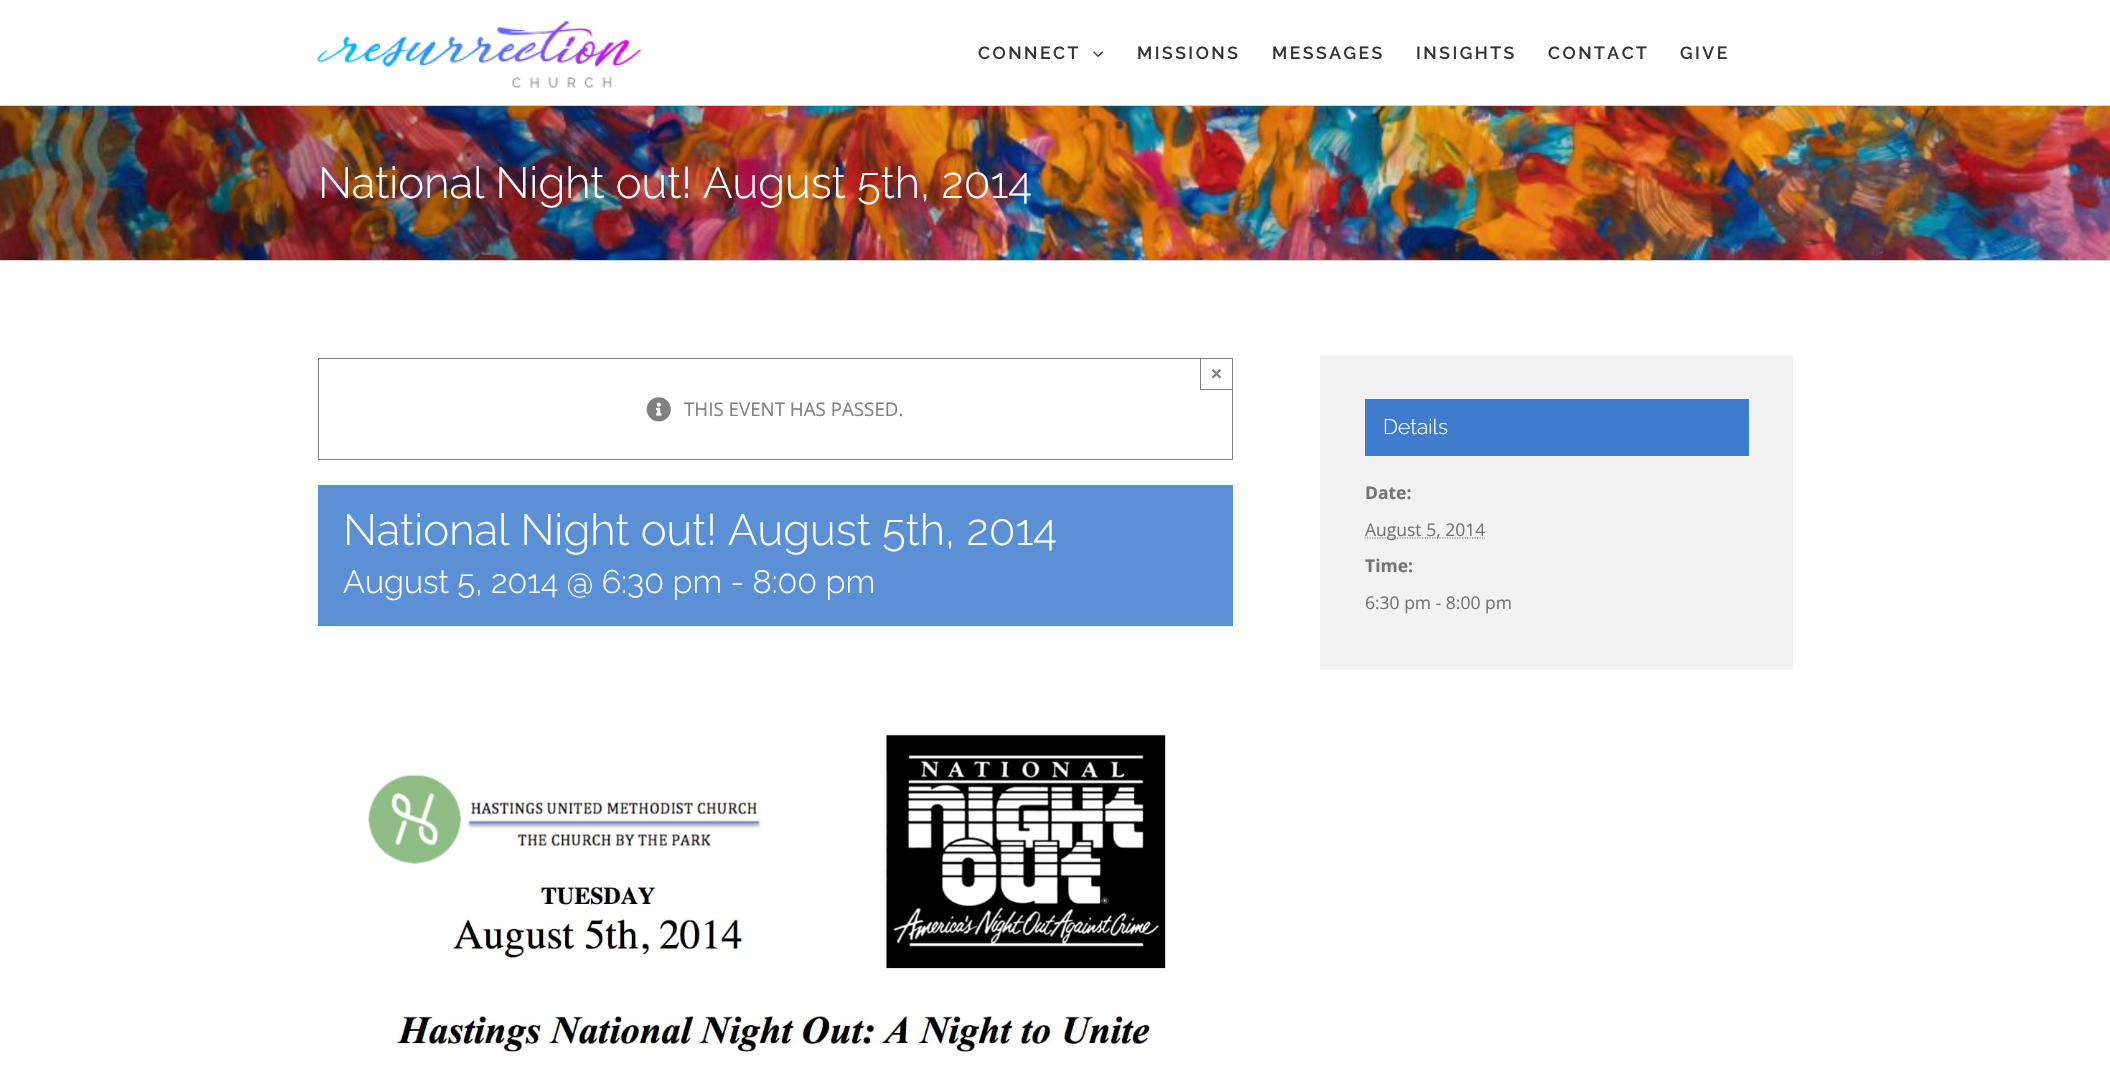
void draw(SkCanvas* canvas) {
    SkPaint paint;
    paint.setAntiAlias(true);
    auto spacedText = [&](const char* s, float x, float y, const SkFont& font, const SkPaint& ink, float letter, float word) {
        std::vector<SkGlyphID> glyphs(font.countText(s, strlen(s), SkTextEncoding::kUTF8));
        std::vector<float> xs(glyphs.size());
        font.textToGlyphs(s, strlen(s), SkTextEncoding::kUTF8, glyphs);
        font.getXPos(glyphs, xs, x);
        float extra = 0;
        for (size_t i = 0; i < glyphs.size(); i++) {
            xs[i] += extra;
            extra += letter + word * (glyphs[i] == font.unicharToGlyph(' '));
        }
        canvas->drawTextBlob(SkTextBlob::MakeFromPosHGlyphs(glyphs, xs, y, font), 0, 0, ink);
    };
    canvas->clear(0xFFFFFFFF);
    canvas->drawImageRect(SkImages::DeferredFromEncodedData(SkData::MakeFromFileName("img1.png")), SkRect::MakeXYWH(317, 20, 325, 69), SkSamplingOptions());
    SkFont font1(fontMgr->matchFamilyStyle("Raleway", SkFontStyle(600, SkFontStyle::kNormal_Width, SkFontStyle::kUpright_Slant)), 17.5f);
    font1.setSubpixel(true);
    paint.setColor(0xFF333333);
    spacedText("CONNECT", 978, 59, font1, paint, 2.5f, 0);
    canvas->drawImageRect(SkImages::DeferredFromEncodedData(SkData::MakeFromFileName("img2.png")), SkRect::MakeXYWH(1093, 51, 10, 6), SkSamplingOptions());
    spacedText("MISSIONS", 1137, 59, font1, paint, 2.5f, 0);
    spacedText("MESSAGES", 1272, 59, font1, paint, 2.5f, 0);
    spacedText("INSIGHTS", 1416, 59, font1, paint, 2.5f, 0);
    spacedText("CONTACT", 1548, 59, font1, paint, 2.5f, 0);
    spacedText("GIVE", 1680, 59, font1, paint, 2.5f, 0);
    canvas->drawImageRect(SkImages::DeferredFromEncodedData(SkData::MakeFromFileName("img3.png")), SkRect::MakeXYWH(0, 106, 2110, 154), SkSamplingOptions());
    paint.setColor(0xFFD2D3D4);
    canvas->drawRect(SkRect::MakeXYWH(0, 105, 2110, 1), paint);
    canvas->drawRect(SkRect::MakeXYWH(0, 260, 2110, 1), paint);
    SkFont font2(fontMgr->matchFamilyStyle("Raleway", SkFontStyle(300, SkFontStyle::kNormal_Width, SkFontStyle::kUpright_Slant)), 43.75f);
    font2.setSubpixel(true);
    paint.setColor(0xFFFFFFFF);
    canvas->drawString("National Night out! August 5th, 2014", 318, 198, font2, paint);
    paint.setStyle(SkPaint::kStroke_Style);
    paint.setStrokeWidth(1);
    paint.setColor(0xFF808080);
    canvas->drawRect(SkRect::MakeXYWH(318.5f, 358.5f, 914, 101), paint);
    paint.setStyle(SkPaint::kFill_Style);
    canvas->drawRect(SkRect::MakeXYWH(1200, 389, 33, 1), paint);
    canvas->drawRect(SkRect::MakeXYWH(1200, 358, 1, 32), paint);
    SkFont font3(fontMgr->matchFamilyStyle("Liberation Sans", SkFontStyle::Bold()), 18.75f);
    font3.setSubpixel(true);
    canvas->drawString("×", 1211, 380, font3, paint);
    canvas->drawImageRect(SkImages::DeferredFromEncodedData(SkData::MakeFromFileName("img4.png")), SkRect::MakeXYWH(646, 397, 25, 25), SkSamplingOptions());
    SkFont font4(fontMgr->matchFamilyStyle("Open Sans", SkFontStyle::Normal()), 18.75f);
    font4.setSubpixel(true);
    canvas->drawString("THIS EVENT HAS PASSED.", 684, 416, font4, paint);
    paint.setColor(0xFF5C90D5);
    canvas->drawRect(SkRect::MakeXYWH(318, 485, 915, 141), paint);
    paint.setColor(0xFFFFFFFF);
    canvas->drawString("National Night out! August 5th, 2014", 343, 545, font2, paint);
    SkFont font5(fontMgr->matchFamilyStyle("Raleway", SkFontStyle(300, SkFontStyle::kNormal_Width, SkFontStyle::kUpright_Slant)), 32.5f);
    font5.setSubpixel(true);
    canvas->drawString("August 5, 2014 @ 6:30 pm - 8:00 pm", 343, 593, font5, paint);
    canvas->drawImageRect(SkImages::DeferredFromEncodedData(SkData::MakeFromFileName("img5.png")), SkRect::MakeXYWH(367, 734, 800, 321), SkSamplingOptions());
    paint.setColor(0xFFF2F2F2);
    canvas->drawRect(SkRect::MakeXYWH(1320, 355, 473, 315), paint);
    paint.setColor(0xFF3F7CCD);
    canvas->drawRect(SkRect::MakeXYWH(1365, 399, 384, 57), paint);
    SkFont font6(fontMgr->matchFamilyStyle("Raleway", SkFontStyle(300, SkFontStyle::kNormal_Width, SkFontStyle::kUpright_Slant)), 21);
    font6.setSubpixel(true);
    paint.setColor(0xFFFFFFFF);
    canvas->drawString("Details", 1383, 434, font6, paint);
    SkFont font7(fontMgr->matchFamilyStyle("Open Sans", SkFontStyle::Bold()), 17.5f);
    font7.setSubpixel(true);
    paint.setColor(0xFF747474);
    canvas->drawString("Date:", 1365, 499, font7, paint);
    paint.setStyle(SkPaint::kStroke_Style);
    paint.setStrokeWidth(1.2f);
    paint.setPathEffect(SkDashPathEffect::Make({{1.25f, 1.25f}}, 0));
    canvas->drawPath(SkPathBuilder().moveTo(1364.5f, 538).lineTo(1485, 538).detach(), paint);
    paint.setPathEffect(nullptr);
    SkFont font8(fontMgr->matchFamilyStyle("Open Sans", SkFontStyle::Normal()), 17.5f);
    font8.setSubpixel(true);
    paint.setStyle(SkPaint::kFill_Style);
    canvas->drawString("August 5, 2014", 1365, 536, font8, paint);
    canvas->drawString("Time:", 1365, 572, font7, paint);
    canvas->drawString("6:30 pm - 8:00 pm", 1365, 609, font8, paint);
}
